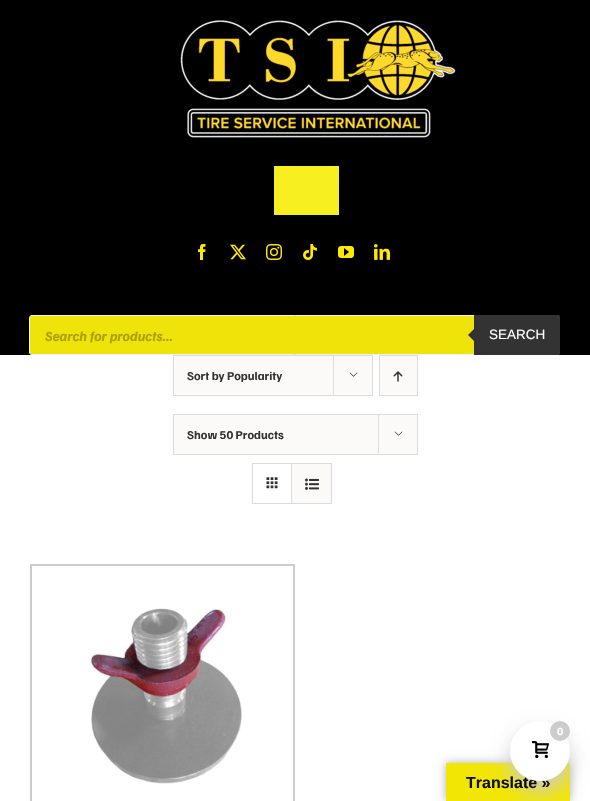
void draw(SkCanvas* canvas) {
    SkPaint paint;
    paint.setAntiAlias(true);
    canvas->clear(0xFFFFFFFF);
    paint.setColor(0xFF000000);
    canvas->drawRect(SkRect::MakeXYWH(0, 0, 590, 355), paint);
    canvas->drawImageRect(SkImages::DeferredFromEncodedData(SkData::MakeFromFileName("img1.png")), SkRect::MakeXYWH(177, 16, 279, 127), SkSamplingOptions());
    paint.setColor(0xFFF8EF21);
    canvas->drawRect(SkRect::MakeXYWH(274, 166, 65, 49), paint);
    canvas->drawImageRect(SkImages::DeferredFromEncodedData(SkData::MakeFromFileName("img2.png")), SkRect::MakeXYWH(198, 244, 8, 16), SkSamplingOptions());
    canvas->drawImageRect(SkImages::DeferredFromEncodedData(SkData::MakeFromFileName("img3.png")), SkRect::MakeXYWH(230, 244, 16, 16), SkSamplingOptions());
    canvas->drawImageRect(SkImages::DeferredFromEncodedData(SkData::MakeFromFileName("img4.png")), SkRect::MakeXYWH(266, 244, 16, 16), SkSamplingOptions());
    canvas->drawImageRect(SkImages::DeferredFromEncodedData(SkData::MakeFromFileName("img5.png")), SkRect::MakeXYWH(303, 244, 14, 16), SkSamplingOptions());
    canvas->drawImageRect(SkImages::DeferredFromEncodedData(SkData::MakeFromFileName("img6.png")), SkRect::MakeXYWH(338, 246, 16, 12), SkSamplingOptions());
    canvas->drawImageRect(SkImages::DeferredFromEncodedData(SkData::MakeFromFileName("img7.png")), SkRect::MakeXYWH(374, 244, 16, 16), SkSamplingOptions());
    paint.setColor(0xFFEFE409);
    canvas->drawRoundRect(SkRect::MakeXYWH(29.5f, 315.5f, 530, 39), 2.5f, 2.5f, paint);
    paint.setStyle(SkPaint::kStroke_Style);
    paint.setStrokeWidth(1);
    paint.setColor(0xFFF2F2F2);
    canvas->drawRoundRect(SkRect::MakeXYWH(29.5f, 315.5f, 530, 39), 2.5f, 2.5f, paint);
    SkFont font1(fontMgr->matchFamilyStyle("Familjen Grotesk", SkFontStyle::BoldItalic()), 14);
    font1.setSubpixel(true);
    paint.setStyle(SkPaint::kFill_Style);
    paint.setColor(0xFFACA006);
    canvas->drawString("Search for products...", 45, 341, font1, paint);
    paint.setColor(0xFF333333);
    canvas->drawPath(SkPathBuilder().moveTo(474, 315).lineTo(558, 315).cubicTo(559, 315, 560, 316, 560, 317).lineTo(560, 353).cubicTo(560, 354, 559, 355, 558, 355).lineTo(474, 355).close().detach(), paint);
    canvas->drawPath(SkPathBuilder().moveTo(476, 327).lineTo(476, 343).lineTo(468, 335).close().detach(), paint);
    SkFont font2(fontMgr->matchFamilyStyle("Liberation Sans", SkFontStyle::Normal()), 13.5f);
    font2.setSubpixel(true);
    paint.setColor(0xFFFFFFFF);
    canvas->drawString("SEARCH", 489, 339, font2, paint);
    paint.setColor(0xFFFBFAF9);
    canvas->drawRect(SkRect::MakeXYWH(173.5f, 355.5f, 199, 40), paint);
    paint.setStyle(SkPaint::kStroke_Style);
    paint.setColor(0xFFDBDBDB);
    canvas->drawRect(SkRect::MakeXYWH(173.5f, 355.5f, 199, 40), paint);
    SkFont font3(fontMgr->matchFamilyStyle("Familjen Grotesk", SkFontStyle::Bold()), 12);
    font3.setSubpixel(true);
    paint.setStyle(SkPaint::kFill_Style);
    paint.setColor(0xFF333333);
    canvas->drawString("Sort by Popularity", 187, 380, font3, paint);
    paint.setColor(0xFFDBDBDB);
    canvas->drawRect(SkRect::MakeXYWH(333, 355, 1, 39), paint);
    canvas->drawImageRect(SkImages::DeferredFromEncodedData(SkData::MakeFromFileName("img8.png")), SkRect::MakeXYWH(349, 372, 9, 5), SkSamplingOptions());
    paint.setColor(0xFFFBFAF9);
    canvas->drawRect(SkRect::MakeXYWH(379.5f, 355.5f, 38, 40), paint);
    paint.setStyle(SkPaint::kStroke_Style);
    paint.setColor(0xFFDBDBDB);
    canvas->drawRect(SkRect::MakeXYWH(379.5f, 355.5f, 38, 40), paint);
    canvas->drawImageRect(SkImages::DeferredFromEncodedData(SkData::MakeFromFileName("img9.png")), SkRect::MakeXYWH(393, 371, 10, 11), SkSamplingOptions());
    paint.setStyle(SkPaint::kFill_Style);
    paint.setColor(0xFFFBFAF9);
    canvas->drawRect(SkRect::MakeXYWH(173.5f, 414.5f, 244, 40), paint);
    paint.setStyle(SkPaint::kStroke_Style);
    paint.setColor(0xFFDBDBDB);
    canvas->drawRect(SkRect::MakeXYWH(173.5f, 414.5f, 244, 40), paint);
    paint.setStyle(SkPaint::kFill_Style);
    paint.setColor(0xFF333333);
    canvas->drawString("Show 50 Products", 187, 439, font3, paint);
    paint.setColor(0xFFDBDBDB);
    canvas->drawRect(SkRect::MakeXYWH(378, 414, 1, 39), paint);
    canvas->drawImageRect(SkImages::DeferredFromEncodedData(SkData::MakeFromFileName("img8.png")), SkRect::MakeXYWH(394, 431, 9, 5), SkSamplingOptions());
    paint.setStyle(SkPaint::kStroke_Style);
    canvas->drawRect(SkRect::MakeXYWH(252.5f, 463.5f, 79, 40), paint);
    paint.setStyle(SkPaint::kFill_Style);
    canvas->drawRect(SkRect::MakeXYWH(291, 464, 1, 39), paint);
    canvas->drawImageRect(SkImages::DeferredFromEncodedData(SkData::MakeFromFileName("img10.png")), SkRect::MakeXYWH(266, 477, 12, 12), SkSamplingOptions());
    paint.setColor(0xFFFBFAF9);
    canvas->drawRect(SkRect::MakeXYWH(292, 464, 39, 39), paint);
    canvas->drawImageRect(SkImages::DeferredFromEncodedData(SkData::MakeFromFileName("img11.png")), SkRect::MakeXYWH(305, 478, 14, 12), SkSamplingOptions());
    paint.setStyle(SkPaint::kStroke_Style);
    paint.setStrokeWidth(2);
    paint.setColor(0xFFCCCCCC);
    canvas->drawRect(SkRect::MakeXYWH(31, 565, 263, 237), paint);
    canvas->drawImageRect(SkImages::DeferredFromEncodedData(SkData::MakeFromFileName("img12.png")), SkRect::MakeXYWH(90, 608, 152, 177), SkSamplingOptions());
    paint.setStyle(SkPaint::kFill_Style);
    paint.setColor(0x4D000000);
    paint.setMaskFilter(SkMaskFilter::MakeBlur(kNormal_SkBlurStyle, 4.5f));
    canvas->drawRect(SkRect::MakeXYWH(446, 763, 124, 38), paint);
    paint.setMaskFilter(nullptr);
    paint.setColor(0xFFF2E604);
    canvas->drawRect(SkRect::MakeXYWH(446, 763, 124, 38), paint);
    paint.setColor(0xFFCCCCCC);
    paint.setMaskFilter(SkMaskFilter::MakeBlur(kNormal_SkBlurStyle, 10));
    canvas->drawRoundRect(SkRect::MakeXYWH(510, 731, 60, 60), 30, 30, paint);
    paint.setMaskFilter(nullptr);
    SkFont font4(fontMgr->matchFamilyStyle("Liberation Sans", SkFontStyle::Bold()), 16);
    font4.setSubpixel(true);
    paint.setColor(0xFF0F0F0F);
    canvas->drawString("Translate »", 466, 788, font4, paint);
    paint.setColor(0xFFFFFFFF);
    canvas->drawCircle(540, 751, 30, paint);
    paint.setColor(0xFFCCCCCC);
    canvas->drawCircle(560, 731, 10, paint);
    SkFont font5(fontMgr->matchFamilyStyle("Familjen Grotesk", SkFontStyle::Bold()), 11);
    font5.setSubpixel(true);
    paint.setColor(0xFFFFFFFF);
    canvas->drawString("0", 557, 735, font5, paint);
    canvas->drawImageRect(SkImages::DeferredFromEncodedData(SkData::MakeFromFileName("img13.png")), SkRect::MakeXYWH(532, 741, 17, 18), SkSamplingOptions());
}
